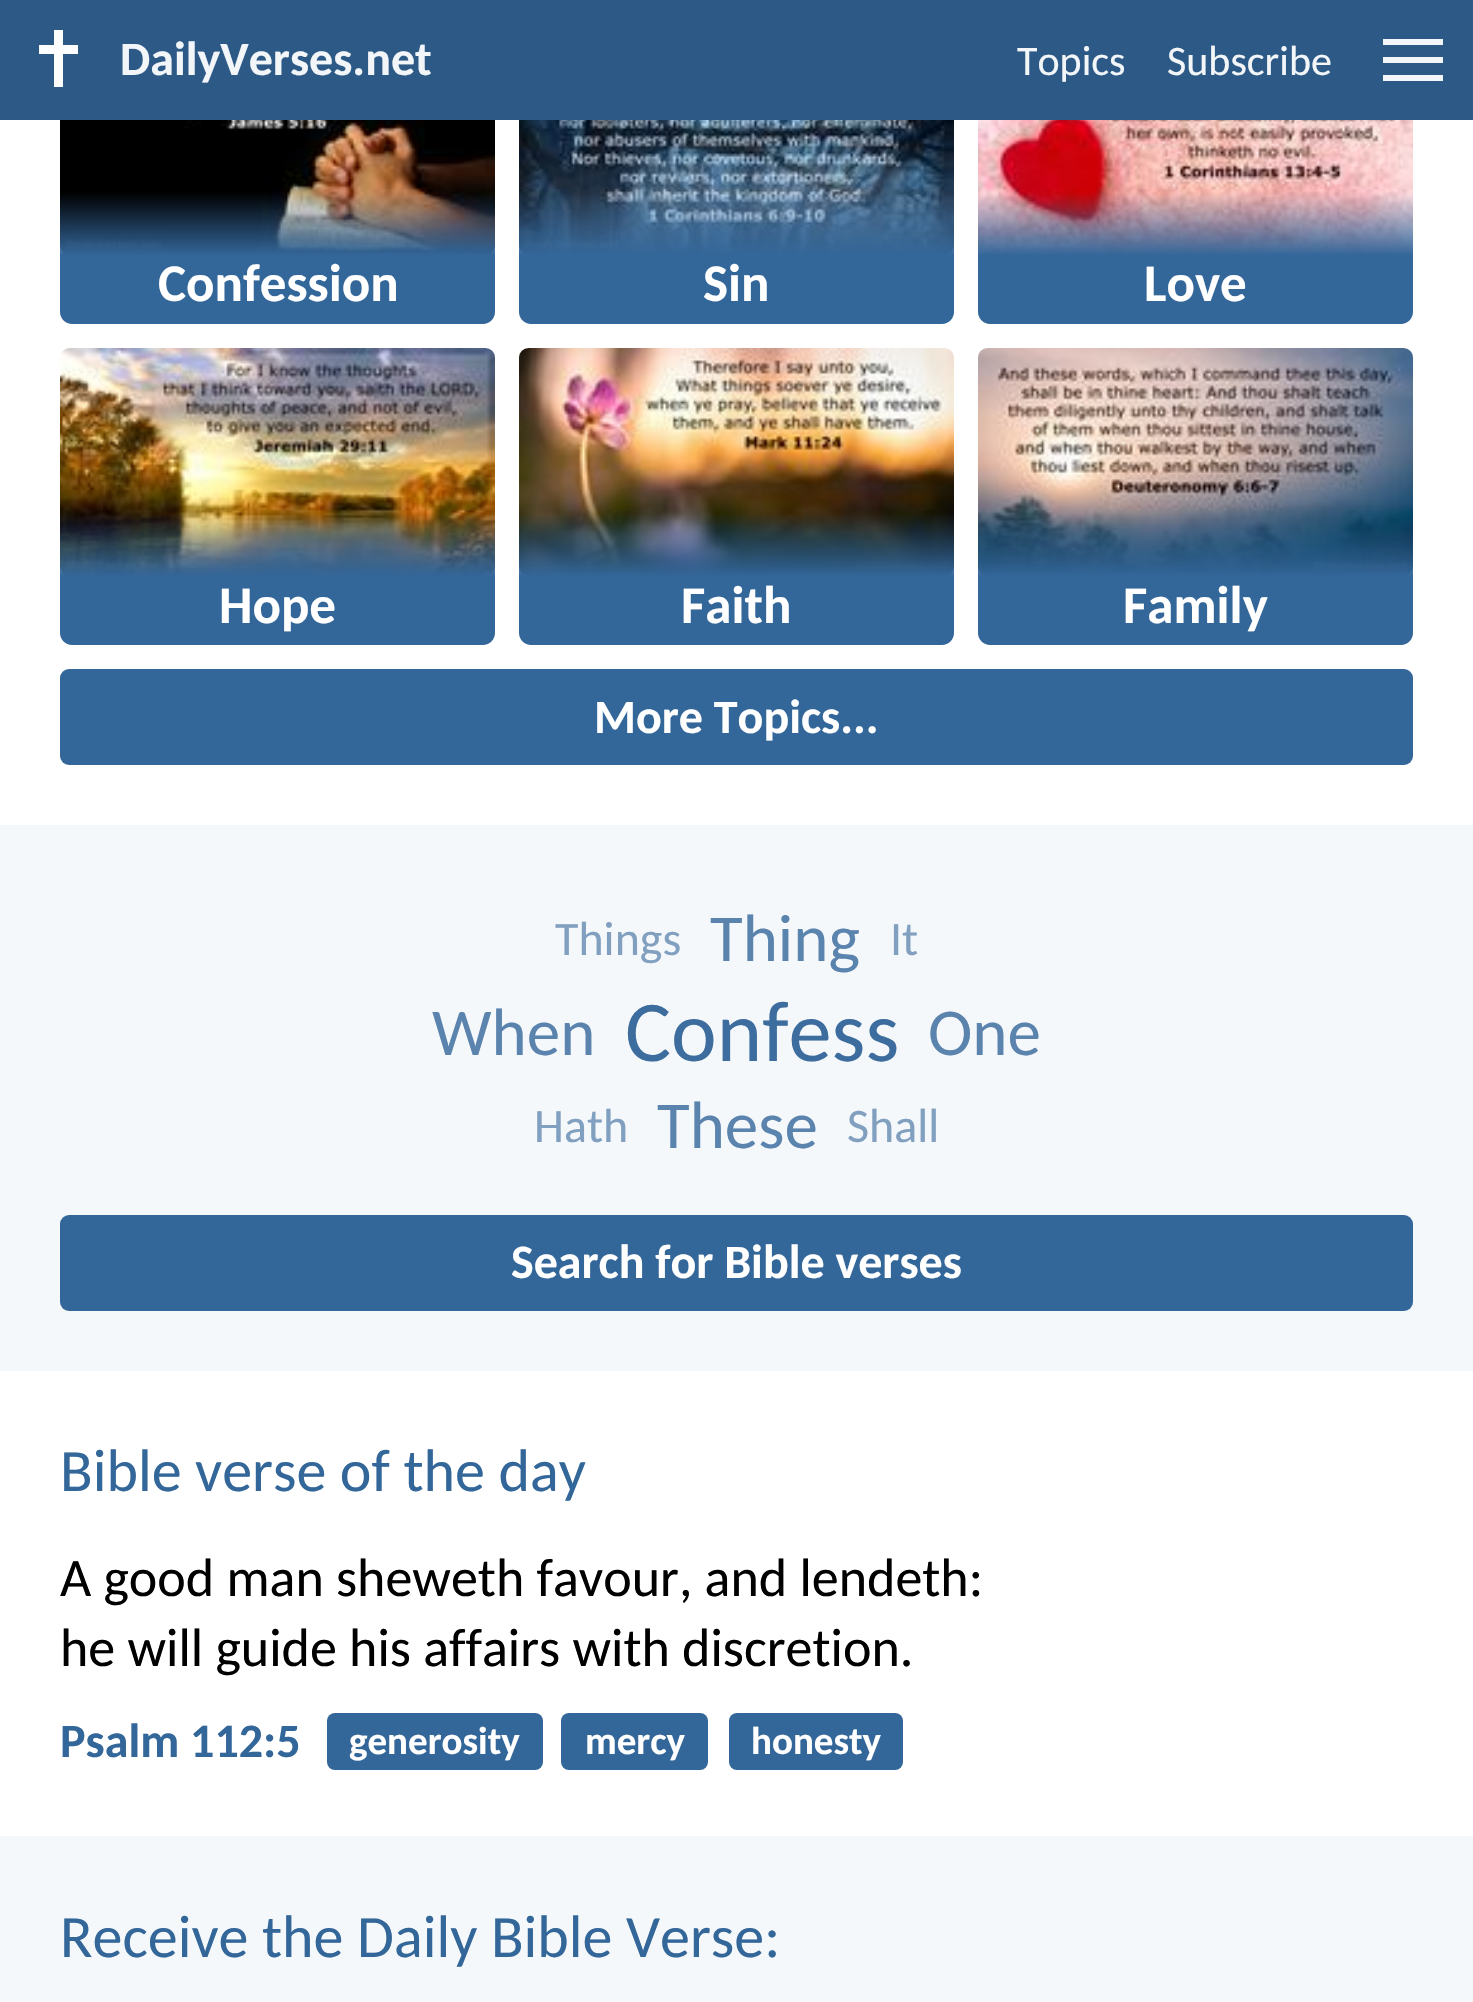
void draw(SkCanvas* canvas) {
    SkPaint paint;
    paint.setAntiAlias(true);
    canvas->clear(0xFFFFFFFF);
    paint.setColor(0xFF2D5986);
    canvas->drawRect(SkRect::MakeXYWH(0, 0, 1473, 120), paint);
    paint.setColor(0xFFFFFFFF);
    canvas->drawRect(SkRect::MakeXYWH(54, 30, 9, 57), paint);
    canvas->drawRect(SkRect::MakeXYWH(39, 45, 39, 9), paint);
    SkFont font1(fontMgr->matchFamilyStyle("Carlito", SkFontStyle::Bold()), 48);
    font1.setSubpixel(true);
    paint.setColor(0xFFF3F6F9);
    canvas->drawString("DailyVerses.net", 120, 75, font1, paint);
    SkFont font2(fontMgr->matchFamilyStyle("Carlito", SkFontStyle::Normal()), 42);
    font2.setSubpixel(true);
    canvas->drawString("Topics", 1017, 75, font2, paint);
    canvas->drawString("Subscribe", 1167, 75, font2, paint);
    canvas->drawRect(SkRect::MakeXYWH(1383, 39, 60, 6), paint);
    canvas->drawRect(SkRect::MakeXYWH(1383, 57, 60, 6), paint);
    canvas->drawRect(SkRect::MakeXYWH(1383, 75, 60, 6), paint);
    canvas->drawImageRect(SkImages::DeferredFromEncodedData(SkData::MakeFromFileName("img1.png")), SkRect::MakeXYWH(60, 120, 435, 135), SkSamplingOptions());
    {
        const SkColor colors[] = {0x00336699, 0xFF336699};
        const float stops[] = {0, 0.48f};
        const SkPoint ends[] = {{278, 192}, {278, 324}};
        paint.setShader(SkGradientShader::MakeLinear(ends, colors, stops, 2, SkTileMode::kClamp));
        paint.setAlpha(255);
    }
    canvas->drawPath(SkPathBuilder().moveTo(60, 192).lineTo(495, 192).lineTo(495, 312).cubicTo(495, 318.5f, 489.5f, 324, 483, 324).lineTo(72, 324).cubicTo(65.5f, 324, 60, 318.5f, 60, 312).close().detach(), paint);
    SkFont font3(fontMgr->matchFamilyStyle("Carlito", SkFontStyle::Bold()), 53);
    font3.setSubpixel(true);
    paint.setShader(nullptr);
    paint.setColor(0xFFFFFFFF);
    canvas->drawString("Confession", 158, 301, font3, paint);
    canvas->drawImageRect(SkImages::DeferredFromEncodedData(SkData::MakeFromFileName("img2.png")), SkRect::MakeXYWH(519, 120, 435, 135), SkSamplingOptions());
    {
        const SkColor colors[] = {0x00336699, 0xFF336699};
        const float stops[] = {0, 0.48f};
        const SkPoint ends[] = {{737, 192}, {737, 324}};
        paint.setShader(SkGradientShader::MakeLinear(ends, colors, stops, 2, SkTileMode::kClamp));
        paint.setAlpha(255);
    }
    canvas->drawPath(SkPathBuilder().moveTo(519, 192).lineTo(954, 192).lineTo(954, 312).cubicTo(954, 318.5f, 948.5f, 324, 942, 324).lineTo(531, 324).cubicTo(524.5f, 324, 519, 318.5f, 519, 312).close().detach(), paint);
    paint.setShader(nullptr);
    paint.setColor(0xFFFFFFFF);
    canvas->drawString("Sin", 703, 301, font3, paint);
    canvas->drawImageRect(SkImages::DeferredFromEncodedData(SkData::MakeFromFileName("img3.png")), SkRect::MakeXYWH(978, 120, 435, 135), SkSamplingOptions());
    {
        const SkColor colors[] = {0x00336699, 0xFF336699};
        const float stops[] = {0, 0.48f};
        const SkPoint ends[] = {{1196, 192}, {1196, 324}};
        paint.setShader(SkGradientShader::MakeLinear(ends, colors, stops, 2, SkTileMode::kClamp));
        paint.setAlpha(255);
    }
    canvas->drawPath(SkPathBuilder().moveTo(978, 192).lineTo(1413, 192).lineTo(1413, 312).cubicTo(1413, 318.5f, 1407.5f, 324, 1401, 324).lineTo(990, 324).cubicTo(983.5f, 324, 978, 318.5f, 978, 312).close().detach(), paint);
    paint.setShader(nullptr);
    paint.setColor(0xFFFFFFFF);
    canvas->drawString("Love", 1144, 301, font3, paint);
    canvas->drawImageRect(SkImages::DeferredFromEncodedData(SkData::MakeFromFileName("img4.png")), SkRect::MakeXYWH(60, 348, 435, 228), SkSamplingOptions());
    {
        const SkColor colors[] = {0x00336699, 0xFF336699};
        const float stops[] = {0, 0.48f};
        const SkPoint ends[] = {{278, 513}, {278, 645}};
        paint.setShader(SkGradientShader::MakeLinear(ends, colors, stops, 2, SkTileMode::kClamp));
        paint.setAlpha(255);
    }
    canvas->drawPath(SkPathBuilder().moveTo(60, 513).lineTo(495, 513).lineTo(495, 633).cubicTo(495, 639.5f, 489.5f, 645, 483, 645).lineTo(72, 645).cubicTo(65.5f, 645, 60, 639.5f, 60, 633).close().detach(), paint);
    paint.setShader(nullptr);
    paint.setColor(0xFFFFFFFF);
    canvas->drawString("Hope", 219, 623, font3, paint);
    canvas->drawImageRect(SkImages::DeferredFromEncodedData(SkData::MakeFromFileName("img5.png")), SkRect::MakeXYWH(519, 348, 435, 228), SkSamplingOptions());
    {
        const SkColor colors[] = {0x00336699, 0xFF336699};
        const float stops[] = {0, 0.48f};
        const SkPoint ends[] = {{737, 513}, {737, 645}};
        paint.setShader(SkGradientShader::MakeLinear(ends, colors, stops, 2, SkTileMode::kClamp));
        paint.setAlpha(255);
    }
    canvas->drawPath(SkPathBuilder().moveTo(519, 513).lineTo(954, 513).lineTo(954, 633).cubicTo(954, 639.5f, 948.5f, 645, 942, 645).lineTo(531, 645).cubicTo(524.5f, 645, 519, 639.5f, 519, 633).close().detach(), paint);
    paint.setShader(nullptr);
    paint.setColor(0xFFFFFFFF);
    canvas->drawString("Faith", 681, 623, font3, paint);
    canvas->drawImageRect(SkImages::DeferredFromEncodedData(SkData::MakeFromFileName("img6.png")), SkRect::MakeXYWH(978, 348, 435, 228), SkSamplingOptions());
    {
        const SkColor colors[] = {0x00336699, 0xFF336699};
        const float stops[] = {0, 0.48f};
        const SkPoint ends[] = {{1196, 513}, {1196, 645}};
        paint.setShader(SkGradientShader::MakeLinear(ends, colors, stops, 2, SkTileMode::kClamp));
        paint.setAlpha(255);
    }
    canvas->drawPath(SkPathBuilder().moveTo(978, 513).lineTo(1413, 513).lineTo(1413, 633).cubicTo(1413, 639.5f, 1407.5f, 645, 1401, 645).lineTo(990, 645).cubicTo(983.5f, 645, 978, 639.5f, 978, 633).close().detach(), paint);
    paint.setShader(nullptr);
    paint.setColor(0xFFFFFFFF);
    canvas->drawString("Family", 1123, 623, font3, paint);
    paint.setColor(0xFF336699);
    canvas->drawRoundRect(SkRect::MakeXYWH(60, 669, 1353, 96), 9, 9, paint);
    paint.setColor(0xFFFFFFFF);
    canvas->drawString("More Topics...", 594, 733, font1, paint);
    paint.setColor(0xFFF5F8FB);
    canvas->drawRect(SkRect::MakeXYWH(0, 825, 1473, 546), paint);
    SkFont font4(fontMgr->matchFamilyStyle("Carlito", SkFontStyle::Normal()), 48);
    font4.setSubpixel(true);
    paint.setColor(0xFF81A0C0);
    canvas->drawString("Things", 555, 955, font4, paint);
    SkFont font5(fontMgr->matchFamilyStyle("Carlito", SkFontStyle::Normal()), 67);
    font5.setSubpixel(true);
    paint.setColor(0xFF5A83AD);
    canvas->drawString("Thing", 710, 961, font5, paint);
    paint.setColor(0xFF81A0C0);
    canvas->drawString("It", 890, 955, font4, paint);
    paint.setColor(0xFF5A83AD);
    canvas->drawString("When", 432, 1055, font5, paint);
    SkFont font6(fontMgr->matchFamilyStyle("Carlito", SkFontStyle::Normal()), 86.5f);
    font6.setSubpixel(true);
    paint.setColor(0xFF3D6D9E);
    canvas->drawString("Confess", 625, 1061, font6, paint);
    paint.setColor(0xFF5A83AD);
    canvas->drawString("One", 928, 1055, font5, paint);
    paint.setColor(0xFF81A0C0);
    canvas->drawString("Hath", 534, 1142, font4, paint);
    paint.setColor(0xFF5A83AD);
    canvas->drawString("These", 657, 1148, font5, paint);
    paint.setColor(0xFF81A0C0);
    canvas->drawString("Shall", 847, 1142, font4, paint);
    paint.setColor(0xFF336699);
    canvas->drawRoundRect(SkRect::MakeXYWH(60, 1215, 1353, 96), 9, 9, paint);
    paint.setColor(0xFFFFFFFF);
    canvas->drawString("Search for Bible verses", 511, 1278, font1, paint);
    SkFont font7(fontMgr->matchFamilyStyle("Carlito", SkFontStyle::Normal()), 60);
    font7.setSubpixel(true);
    paint.setColor(0xFF336699);
    canvas->drawString("Bible verse of the day", 60, 1491, font7, paint);
    SkFont font8(fontMgr->matchFamilyStyle("Carlito", SkFontStyle::Normal()), 54);
    font8.setSubpixel(true);
    paint.setColor(0xFF000000);
    canvas->drawString("A good man sheweth favour, and lendeth:", 60, 1596, font8, paint);
    canvas->drawString("he will guide his affairs with discretion.", 60, 1666, font8, paint);
    paint.setColor(0xFF336699);
    canvas->drawString("Psalm 112:5", 60, 1757, font1, paint);
    canvas->drawRoundRect(SkRect::MakeXYWH(327, 1713, 216, 57), 8, 8, paint);
    SkFont font9(fontMgr->matchFamilyStyle("Carlito", SkFontStyle::Bold()), 39);
    font9.setSubpixel(true);
    paint.setColor(0xFFFFFFFF);
    canvas->drawString("generosity", 349, 1754, font9, paint);
    paint.setColor(0xFF336699);
    canvas->drawRoundRect(SkRect::MakeXYWH(561, 1713, 147, 57), 8, 8, paint);
    paint.setColor(0xFFFFFFFF);
    canvas->drawString("mercy", 585, 1754, font9, paint);
    paint.setColor(0xFF336699);
    canvas->drawRoundRect(SkRect::MakeXYWH(729, 1713, 174, 57), 8, 8, paint);
    paint.setColor(0xFFFFFFFF);
    canvas->drawString("honesty", 751, 1754, font9, paint);
    paint.setColor(0xFFF5F8FB);
    canvas->drawRect(SkRect::MakeXYWH(0, 1836, 1473, 166), paint);
    paint.setColor(0xFF336699);
    canvas->drawString("Receive the Daily Bible Verse:", 60, 1957, font7, paint);
}
